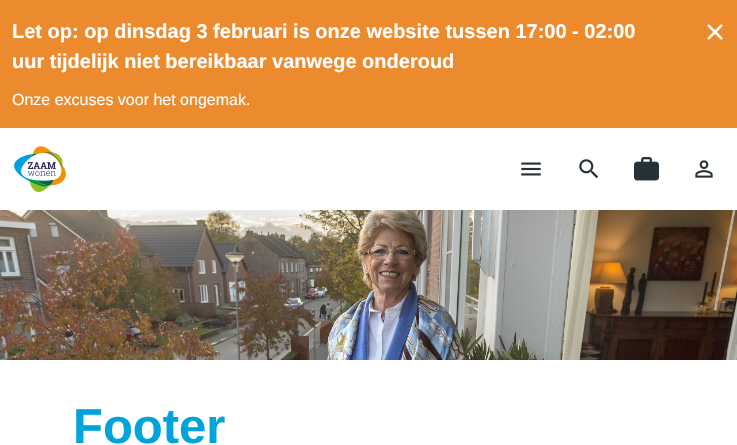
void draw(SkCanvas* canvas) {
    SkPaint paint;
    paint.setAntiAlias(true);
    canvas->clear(0xFFFFFFFF);
    paint.setColor(0xFFEC8B2D);
    canvas->drawRect(SkRect::MakeXYWH(0, 0, 737, 128), paint);
    SkFont font1(fontMgr->matchFamilyStyle("Liberation Sans", SkFontStyle::Bold()), 20);
    font1.setSubpixel(true);
    paint.setColor(0xFFFFFFFF);
    canvas->drawString("Let op: op dinsdag 3 februari is onze website tussen 17:00 - 02:00", 12, 38, font1, paint);
    canvas->drawString("uur tijdelijk niet bereikbaar vanwege onderoud", 12, 68, font1, paint);
    canvas->drawImageRect(SkImages::DeferredFromEncodedData(SkData::MakeFromFileName("img1.png")), SkRect::MakeXYWH(707, 24, 16, 16), SkSamplingOptions());
    SkFont font2(fontMgr->matchFamilyStyle("Liberation Sans", SkFontStyle::Normal()), 16);
    font2.setSubpixel(true);
    canvas->drawString("Onze excuses voor het ongemak.", 12, 105, font2, paint);
    canvas->drawImageRect(SkImages::DeferredFromEncodedData(SkData::MakeFromFileName("img2.png")), SkRect::MakeXYWH(14, 146, 52, 46), SkSamplingOptions());
    canvas->drawImageRect(SkImages::DeferredFromEncodedData(SkData::MakeFromFileName("img3.png")), SkRect::MakeXYWH(521, 162, 20, 14), SkSamplingOptions());
    canvas->drawImageRect(SkImages::DeferredFromEncodedData(SkData::MakeFromFileName("img4.png")), SkRect::MakeXYWH(579, 159, 20, 20), SkSamplingOptions());
    canvas->drawImageRect(SkImages::DeferredFromEncodedData(SkData::MakeFromFileName("img5.png")), SkRect::MakeXYWH(634, 157, 25, 24), SkSamplingOptions());
    canvas->drawImageRect(SkImages::DeferredFromEncodedData(SkData::MakeFromFileName("img6.png")), SkRect::MakeXYWH(695, 160, 18, 18), SkSamplingOptions());
    canvas->drawImageRect(SkImages::DeferredFromEncodedData(SkData::MakeFromFileName("img7.png")), SkRect::MakeXYWH(0, 210, 737, 150), SkSamplingOptions());
    SkFont font3(fontMgr->matchFamilyStyle("Liberation Sans", SkFontStyle::Bold()), 49);
    font3.setSubpixel(true);
    paint.setColor(0xFF00A3DA);
    canvas->drawString("Footer", 73, 443, font3, paint);
}
